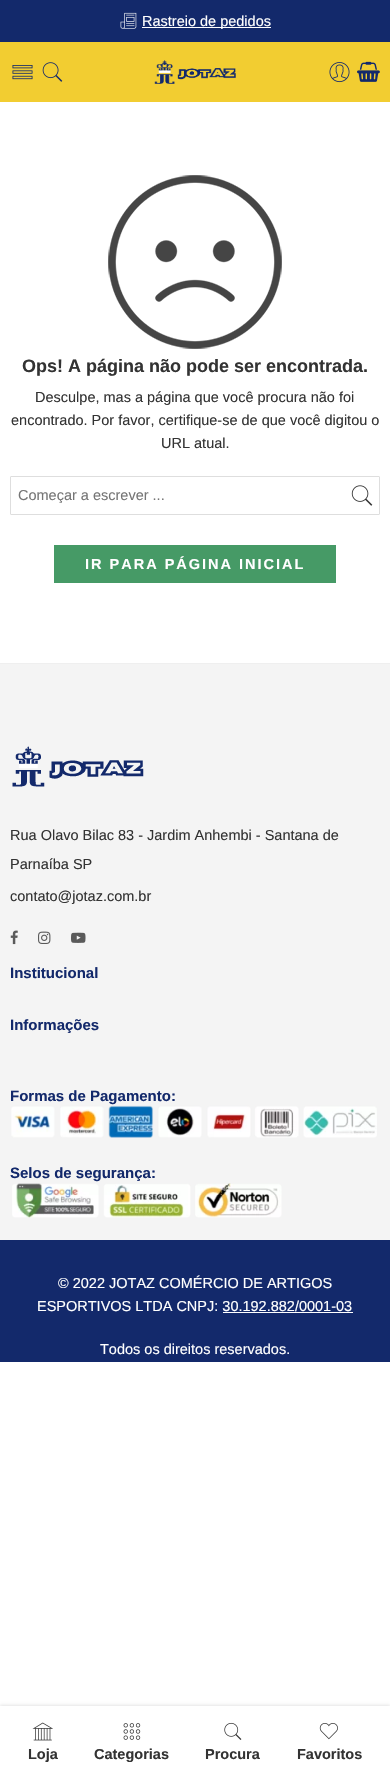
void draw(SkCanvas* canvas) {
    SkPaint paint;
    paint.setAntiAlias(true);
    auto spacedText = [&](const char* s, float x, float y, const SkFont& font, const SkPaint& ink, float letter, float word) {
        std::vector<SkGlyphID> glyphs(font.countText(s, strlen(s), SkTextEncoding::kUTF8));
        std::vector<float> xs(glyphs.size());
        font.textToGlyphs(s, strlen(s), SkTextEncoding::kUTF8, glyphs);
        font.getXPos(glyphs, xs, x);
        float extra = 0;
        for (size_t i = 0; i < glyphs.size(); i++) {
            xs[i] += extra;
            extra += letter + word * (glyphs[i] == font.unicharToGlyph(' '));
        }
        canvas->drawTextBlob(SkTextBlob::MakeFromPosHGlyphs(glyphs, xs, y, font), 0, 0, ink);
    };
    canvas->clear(0xFFFFFFFF);
    paint.setColor(0xFF13296B);
    canvas->drawRect(SkRect::MakeXYWH(0, 0, 390, 42), paint);
    canvas->drawImageRect(SkImages::DeferredFromEncodedData(SkData::MakeFromFileName("img1.png")), SkRect::MakeXYWH(120, 12, 17, 17), SkSamplingOptions());
    paint.setColor(0xFFFFFFFF);
    canvas->drawRect(SkRect::MakeXYWH(142, 27, 129, 1), paint);
    SkFont font1(fontMgr->matchFamilyStyle("Liberation Sans", SkFontStyle::Normal()), 14.5f);
    font1.setSubpixel(true);
    canvas->drawString("Rastreio de pedidos", 142, 26, font1, paint);
    paint.setColor(0xFFF2CD31);
    canvas->drawRect(SkRect::MakeXYWH(0, 42, 390, 60), paint);
    canvas->drawImageRect(SkImages::DeferredFromEncodedData(SkData::MakeFromFileName("img2.png")), SkRect::MakeXYWH(12, 65, 21, 15), SkSamplingOptions());
    canvas->drawImageRect(SkImages::DeferredFromEncodedData(SkData::MakeFromFileName("img3.png")), SkRect::MakeXYWH(42, 62, 21, 20), SkSamplingOptions());
    canvas->drawImageRect(SkImages::DeferredFromEncodedData(SkData::MakeFromFileName("img4.png")), SkRect::MakeXYWH(154, 60, 82, 24), SkSamplingOptions());
    canvas->drawImageRect(SkImages::DeferredFromEncodedData(SkData::MakeFromFileName("img5.png")), SkRect::MakeXYWH(329, 62, 21, 21), SkSamplingOptions());
    canvas->drawImageRect(SkImages::DeferredFromEncodedData(SkData::MakeFromFileName("img6.png")), SkRect::MakeXYWH(357, 61, 23, 21), SkSamplingOptions());
    canvas->drawImageRect(SkImages::DeferredFromEncodedData(SkData::MakeFromFileName("img7.png")), SkRect::MakeXYWH(108, 175, 174, 174), SkSamplingOptions());
    SkFont font2(fontMgr->matchFamilyStyle("Liberation Sans", SkFontStyle::Bold()), 18);
    font2.setSubpixel(true);
    paint.setColor(0xFF333333);
    canvas->drawString("Ops! A página não pode ser encontrada.", 22, 372, font2, paint);
    canvas->drawString("Desculpe, mas a página que você procura não foi", 35, 402, font1, paint);
    canvas->drawString("encontrado. Por favor, certifique-se de que você digitou o", 11, 425, font1, paint);
    canvas->drawString("URL atual.", 161, 448, font1, paint);
    paint.setStyle(SkPaint::kStroke_Style);
    paint.setStrokeWidth(1);
    paint.setColor(0xFFDEDEDE);
    canvas->drawRoundRect(SkRect::MakeXYWH(10.5f, 476.5f, 369, 38), 0.5f, 0.5f, paint);
    paint.setStyle(SkPaint::kFill_Style);
    paint.setColor(0xFF757575);
    canvas->drawString("Começar a escrever ...", 18, 500, font1, paint);
    canvas->drawImageRect(SkImages::DeferredFromEncodedData(SkData::MakeFromFileName("img8.png")), SkRect::MakeXYWH(351, 485, 22, 21), SkSamplingOptions());
    paint.setColor(0xFF469A66);
    canvas->drawRect(SkRect::MakeXYWH(54, 545, 282, 38), paint);
    SkFont font3(fontMgr->matchFamilyStyle("Liberation Sans", SkFontStyle::Bold()), 14.5f);
    font3.setSubpixel(true);
    paint.setColor(0xFFFFFFFF);
    spacedText("IR PARA PÁGINA INICIAL", 85, 569, font3, paint, 2, 0);
    paint.setColor(0xFFF4F4F4);
    canvas->drawRect(SkRect::MakeXYWH(0, 664, 390, 576), paint);
    paint.setColor(0xFFEFEFEF);
    canvas->drawRect(SkRect::MakeXYWH(0, 663, 390, 1), paint);
    canvas->drawImageRect(SkImages::DeferredFromEncodedData(SkData::MakeFromFileName("img9.png")), SkRect::MakeXYWH(12, 746, 132, 41), SkSamplingOptions());
    paint.setColor(0xFF333333);
    canvas->drawString("Rua Olavo Bilac 83 - Jardim Anhembi - Santana de", 10, 840, font1, paint);
    canvas->drawString("Parnaíba SP", 10, 869, font1, paint);
    canvas->drawString("contato@jotaz.com.br", 10, 901, font1, paint);
    canvas->drawImageRect(SkImages::DeferredFromEncodedData(SkData::MakeFromFileName("img10.png")), SkRect::MakeXYWH(10, 930, 8, 15), SkSamplingOptions());
    canvas->drawImageRect(SkImages::DeferredFromEncodedData(SkData::MakeFromFileName("img11.png")), SkRect::MakeXYWH(38, 931, 13, 13), SkSamplingOptions());
    canvas->drawImageRect(SkImages::DeferredFromEncodedData(SkData::MakeFromFileName("img12.png")), SkRect::MakeXYWH(71, 932, 15, 11), SkSamplingOptions());
    SkFont font4(fontMgr->matchFamilyStyle("Liberation Sans", SkFontStyle::Bold()), 15);
    font4.setSubpixel(true);
    paint.setColor(0xFF13296B);
    canvas->drawString("Institucional", 10, 978, font4, paint);
    canvas->drawString("Informações", 10, 1030, font4, paint);
    canvas->drawString("Formas de Pagamento:", 10, 1101, font4, paint);
    canvas->drawImageRect(SkImages::DeferredFromEncodedData(SkData::MakeFromFileName("img13.png")), SkRect::MakeXYWH(11, 1105, 366, 33), SkSamplingOptions());
    canvas->drawString("Selos de segurança:", 10, 1178, font4, paint);
    canvas->drawImageRect(SkImages::DeferredFromEncodedData(SkData::MakeFromFileName("img14.png")), SkRect::MakeXYWH(12, 1183, 270, 35), SkSamplingOptions());
    canvas->drawRect(SkRect::MakeXYWH(0, 1240, 390, 122), paint);
    paint.setColor(0xFFFFFFFF);
    canvas->drawString("© 2022 JOTAZ COMÉRCIO DE ARTIGOS", 58, 1288, font1, paint);
    canvas->drawString("ESPORTIVOS LTDA CNPJ: 30.192.882/0001-03", 37, 1311, font1, paint);
    canvas->drawRect(SkRect::MakeXYWH(223, 1312, 130, 1), paint);
    canvas->drawString("Todos os direitos reservados.", 100, 1354, font1, paint);
    paint.setColor(0x1A000000);
    paint.setMaskFilter(SkMaskFilter::MakeBlur(kNormal_SkBlurStyle, 1.5f));
    canvas->drawRect(SkRect::MakeXYWH(0, 1705, 390, 70), paint);
    paint.setMaskFilter(nullptr);
    paint.setColor(0xFFFFFFFF);
    canvas->drawRect(SkRect::MakeXYWH(0, 1706, 390, 70), paint);
    canvas->drawImageRect(SkImages::DeferredFromEncodedData(SkData::MakeFromFileName("img15.png")), SkRect::MakeXYWH(32, 1722, 21, 19), SkSamplingOptions());
    paint.setColor(0xFF333333);
    canvas->drawString("Loja", 28, 1759, font3, paint);
    canvas->drawImageRect(SkImages::DeferredFromEncodedData(SkData::MakeFromFileName("img16.png")), SkRect::MakeXYWH(123, 1723, 18, 17), SkSamplingOptions());
    canvas->drawString("Categorias", 94, 1759, font3, paint);
    canvas->drawImageRect(SkImages::DeferredFromEncodedData(SkData::MakeFromFileName("img17.png")), SkRect::MakeXYWH(224, 1722, 18, 18), SkSamplingOptions());
    canvas->drawString("Procura", 205, 1759, font3, paint);
    canvas->drawImageRect(SkImages::DeferredFromEncodedData(SkData::MakeFromFileName("img18.png")), SkRect::MakeXYWH(319, 1723, 19, 17), SkSamplingOptions());
    canvas->drawString("Favoritos", 297, 1759, font3, paint);
}
